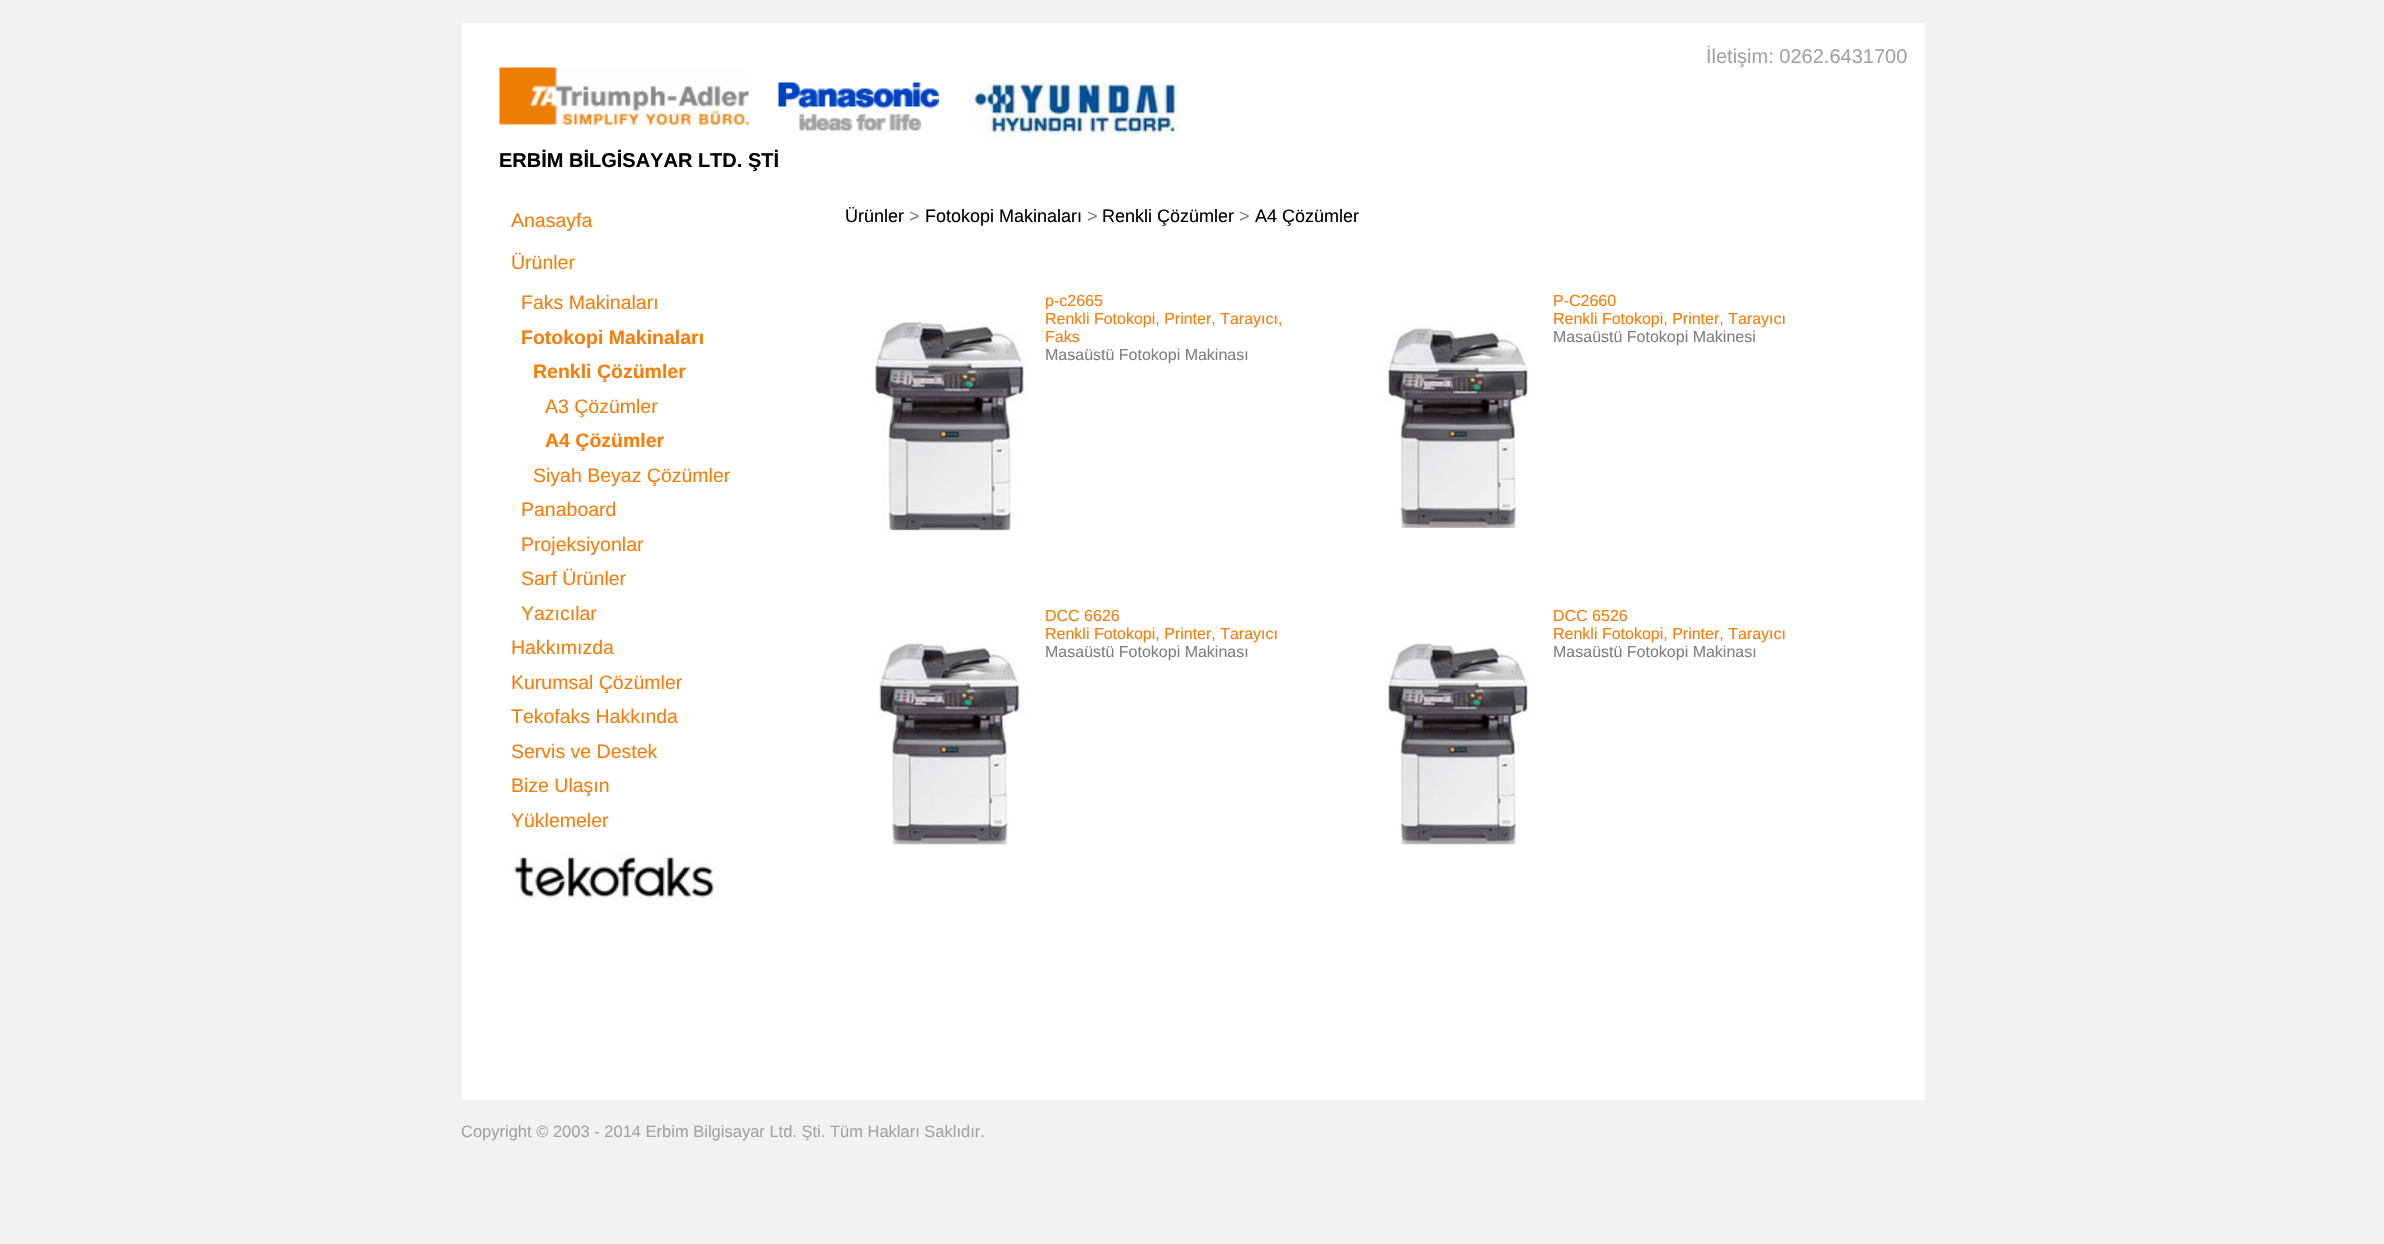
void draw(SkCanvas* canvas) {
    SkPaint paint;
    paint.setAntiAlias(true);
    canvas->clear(0xFFF2F2F2);
    paint.setColor(0xFFFFFFFF);
    canvas->drawRect(SkRect::MakeXYWH(462, 23, 1463, 1077), paint);
    SkFont font1(fontMgr->matchFamilyStyle("Liberation Sans", SkFontStyle::Normal()), 20);
    font1.setSubpixel(true);
    paint.setColor(0xFFA3A3A3);
    canvas->drawString("İletişim: 0262.6431700", 1706, 63, font1, paint);
    canvas->drawImageRect(SkImages::DeferredFromEncodedData(SkData::MakeFromFileName("img1.png")), SkRect::MakeXYWH(499, 67, 250, 58), SkSamplingOptions());
    canvas->drawImageRect(SkImages::DeferredFromEncodedData(SkData::MakeFromFileName("img2.png")), SkRect::MakeXYWH(778, 82, 161, 49), SkSamplingOptions());
    canvas->drawImageRect(SkImages::DeferredFromEncodedData(SkData::MakeFromFileName("img3.png")), SkRect::MakeXYWH(969, 82, 211, 56), SkSamplingOptions());
    SkFont font2(fontMgr->matchFamilyStyle("Liberation Sans", SkFontStyle::Bold()), 20);
    font2.setSubpixel(true);
    paint.setColor(0xFF000000);
    canvas->drawString("ERBİM BİLGİSAYAR LTD. ŞTİ", 499, 167, font2, paint);
    SkFont font3(fontMgr->matchFamilyStyle("Liberation Sans", SkFontStyle::Normal()), 19.5f);
    font3.setSubpixel(true);
    paint.setColor(0xFFF87C09);
    canvas->drawString("Anasayfa", 511, 227, font3, paint);
    canvas->drawString("Ürünler", 511, 269, font3, paint);
    canvas->drawString("Faks Makinaları", 521, 309, font3, paint);
    SkFont font4(fontMgr->matchFamilyStyle("Liberation Sans", SkFontStyle::Bold()), 19.5f);
    font4.setSubpixel(true);
    canvas->drawString("Fotokopi Makinaları", 521, 344, font4, paint);
    canvas->drawString("Renkli Çözümler", 533, 378, font4, paint);
    canvas->drawString("A3 Çözümler", 545, 413, font3, paint);
    canvas->drawString("A4 Çözümler", 545, 447, font4, paint);
    canvas->drawString("Siyah Beyaz Çözümler", 533, 482, font3, paint);
    canvas->drawString("Panaboard", 521, 516, font3, paint);
    canvas->drawString("Projeksiyonlar", 521, 551, font3, paint);
    canvas->drawString("Sarf Ürünler", 521, 585, font3, paint);
    canvas->drawString("Yazıcılar", 521, 620, font3, paint);
    canvas->drawString("Hakkımızda", 511, 654, font3, paint);
    canvas->drawString("Kurumsal Çözümler", 511, 689, font3, paint);
    canvas->drawString("Tekofaks Hakkında", 511, 723, font3, paint);
    canvas->drawString("Servis ve Destek", 511, 758, font3, paint);
    canvas->drawString("Bize Ulaşın", 511, 792, font3, paint);
    canvas->drawString("Yüklemeler", 511, 827, font3, paint);
    canvas->drawImageRect(SkImages::DeferredFromEncodedData(SkData::MakeFromFileName("img4.png")), SkRect::MakeXYWH(511, 852, 209, 48), SkSamplingOptions());
    SkFont font5(fontMgr->matchFamilyStyle("Liberation Sans", SkFontStyle::Normal()), 18);
    font5.setSubpixel(true);
    paint.setColor(0xFF000000);
    canvas->drawString("Ürünler", 845, 222, font5, paint);
    paint.setColor(0xFF7F7F7F);
    canvas->drawString(">", 909, 222, font5, paint);
    paint.setColor(0xFF000000);
    canvas->drawString("Fotokopi Makinaları", 925, 222, font5, paint);
    paint.setColor(0xFF7F7F7F);
    canvas->drawString(">", 1087, 222, font5, paint);
    paint.setColor(0xFF000000);
    canvas->drawString("Renkli Çözümler", 1102, 222, font5, paint);
    paint.setColor(0xFF7F7F7F);
    canvas->drawString(">", 1239, 222, font5, paint);
    paint.setColor(0xFF000000);
    canvas->drawString("A4 Çözümler", 1255, 222, font5, paint);
    canvas->drawImageRect(SkImages::DeferredFromEncodedData(SkData::MakeFromFileName("img5.png")), SkRect::MakeXYWH(872, 322, 155, 209), SkSamplingOptions());
    SkFont font6(fontMgr->matchFamilyStyle("Liberation Sans", SkFontStyle::Normal()), 16);
    font6.setSubpixel(true);
    paint.setColor(0xFFF87C09);
    canvas->drawString("p-c2665", 1045, 306, font6, paint);
    canvas->drawString("Renkli Fotokopi, Printer, Tarayıcı,", 1045, 324, font6, paint);
    canvas->drawString("Faks", 1045, 342, font6, paint);
    paint.setColor(0xFF7F7F7F);
    canvas->drawString("Masaüstü Fotokopi Makinası", 1045, 360, font6, paint);
    paint.setColor(0xFFF87C09);
    canvas->drawString("P-C2660", 1553, 306, font6, paint);
    canvas->drawString("Renkli Fotokopi, Printer, Tarayıcı", 1553, 324, font6, paint);
    paint.setColor(0xFF7F7F7F);
    canvas->drawString("Masaüstü Fotokopi Makinesi", 1553, 342, font6, paint);
    canvas->drawImageRect(SkImages::DeferredFromEncodedData(SkData::MakeFromFileName("img6.png")), SkRect::MakeXYWH(1383, 326, 146, 202), SkSamplingOptions());
    paint.setColor(0xFFF87C09);
    canvas->drawString("DCC 6626", 1045, 621, font6, paint);
    canvas->drawString("Renkli Fotokopi, Printer, Tarayıcı", 1045, 639, font6, paint);
    paint.setColor(0xFF7F7F7F);
    canvas->drawString("Masaüstü Fotokopi Makinası", 1045, 657, font6, paint);
    canvas->drawImageRect(SkImages::DeferredFromEncodedData(SkData::MakeFromFileName("img7.png")), SkRect::MakeXYWH(875, 641, 150, 204), SkSamplingOptions());
    paint.setColor(0xFFF87C09);
    canvas->drawString("DCC 6526", 1553, 621, font6, paint);
    canvas->drawString("Renkli Fotokopi, Printer, Tarayıcı", 1553, 639, font6, paint);
    paint.setColor(0xFF7F7F7F);
    canvas->drawString("Masaüstü Fotokopi Makinası", 1553, 657, font6, paint);
    canvas->drawImageRect(SkImages::DeferredFromEncodedData(SkData::MakeFromFileName("img8.png")), SkRect::MakeXYWH(1384, 641, 150, 204), SkSamplingOptions());
    SkFont font7(fontMgr->matchFamilyStyle("Liberation Sans", SkFontStyle::Normal()), 16.5f);
    font7.setSubpixel(true);
    paint.setColor(0xFFA3A3A3);
    canvas->drawString("Copyright © 2003 - 2014 Erbim Bilgisayar Ltd. Şti. Tüm Hakları Saklıdır.", 461, 1137, font7, paint);
}
